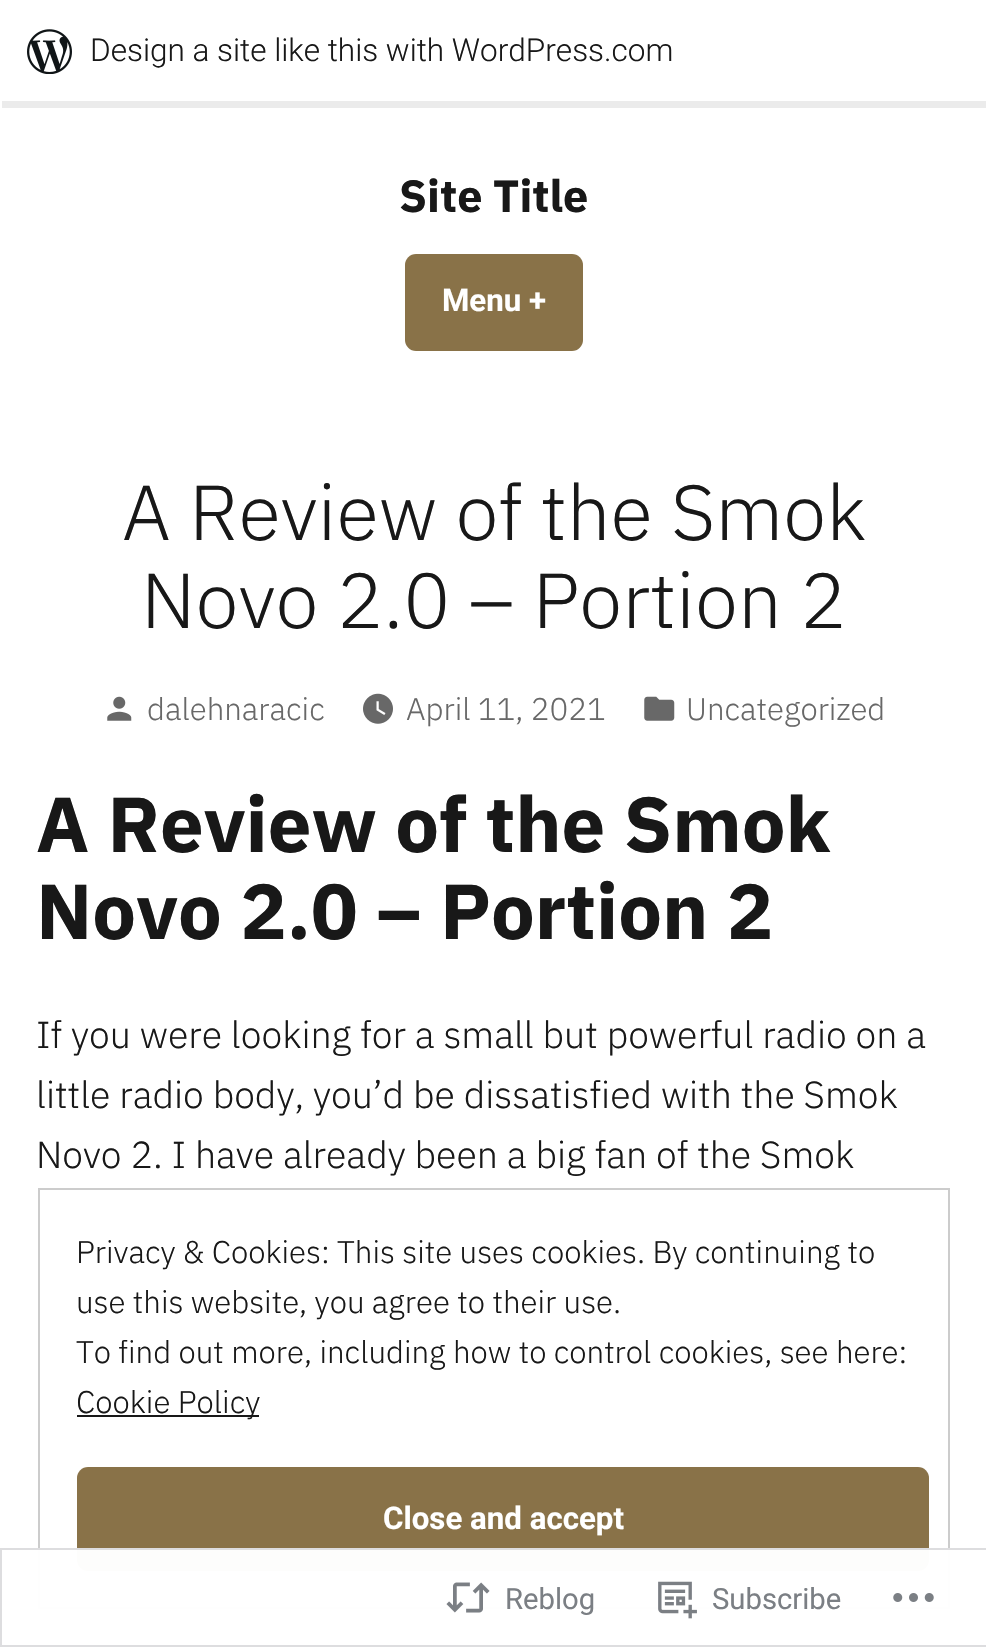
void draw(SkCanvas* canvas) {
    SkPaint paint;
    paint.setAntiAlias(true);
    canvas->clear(0xFFFFFFFF);
    paint.setColor(0x14000000);
    canvas->drawPath(SkPathBuilder().moveTo(2, 101).lineTo(2, 108).lineTo(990, 108).lineTo(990, 7).lineTo(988, 7).lineTo(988, 101).close().detach(), paint);
    canvas->drawImageRect(SkImages::DeferredFromEncodedData(SkData::MakeFromFileName("img1.png")), SkRect::MakeXYWH(27, 29, 45, 45), SkSamplingOptions());
    SkFont font1(fontMgr->matchFamilyStyle("Roboto", SkFontStyle(300, SkFontStyle::kNormal_Width, SkFontStyle::kUpright_Slant)), 31.5f);
    font1.setSubpixel(true);
    paint.setColor(0xFF181818);
    canvas->drawString("Design a site like this with WordPress.com", 90, 61, font1, paint);
    SkFont font2(fontMgr->matchFamilyStyle("IBM Plex Sans", SkFontStyle::Bold()), 45);
    font2.setSubpixel(true);
    canvas->drawString("Site Title", 399, 212, font2, paint);
    paint.setColor(0xFF897248);
    canvas->drawRoundRect(SkRect::MakeXYWH(405, 254, 178, 97), 11, 11, paint);
    SkFont font3(fontMgr->matchFamilyStyle("Roboto", SkFontStyle::Bold()), 31.25f);
    font3.setSubpixel(true);
    paint.setColor(0xFFFFFFFF);
    canvas->drawString("Menu +", 442, 311, font3, paint);
    SkFont font4(fontMgr->matchFamilyStyle("IBM Plex Sans", SkFontStyle(300, SkFontStyle::kNormal_Width, SkFontStyle::kUpright_Slant)), 77.75f);
    font4.setSubpixel(true);
    paint.setColor(0xFF181818);
    canvas->drawString("A Review of the Smok", 122, 540, font4, paint);
    canvas->drawString("Novo 2.0 – Portion 2", 141, 628, font4, paint);
    canvas->drawImageRect(SkImages::DeferredFromEncodedData(SkData::MakeFromFileName("img2.png")), SkRect::MakeXYWH(107, 696, 25, 25), SkSamplingOptions());
    SkFont font5(fontMgr->matchFamilyStyle("IBM Plex Sans", SkFontStyle(300, SkFontStyle::kNormal_Width, SkFontStyle::kUpright_Slant)), 31.25f);
    font5.setSubpixel(true);
    paint.setColor(0xFF686868);
    canvas->drawString("dalehnaracic", 147, 720, font5, paint);
    canvas->drawImageRect(SkImages::DeferredFromEncodedData(SkData::MakeFromFileName("img3.png")), SkRect::MakeXYWH(363, 693, 30, 31), SkSamplingOptions());
    canvas->drawString("April 11, 2021", 406, 720, font5, paint);
    canvas->drawImageRect(SkImages::DeferredFromEncodedData(SkData::MakeFromFileName("img4.png")), SkRect::MakeXYWH(644, 696, 31, 25), SkSamplingOptions());
    canvas->drawString("Uncategorized", 686, 720, font5, paint);
    SkFont font6(fontMgr->matchFamilyStyle("IBM Plex Sans", SkFontStyle::Bold()), 77.75f);
    font6.setSubpixel(true);
    paint.setColor(0xFF181818);
    canvas->drawString("A Review of the Smok", 36, 852, font6, paint);
    canvas->drawString("Novo 2.0 – Portion 2", 36, 939, font6, paint);
    SkFont font7(fontMgr->matchFamilyStyle("IBM Plex Sans", SkFontStyle(300, SkFontStyle::kNormal_Width, SkFontStyle::kUpright_Slant)), 37.5f);
    font7.setSubpixel(true);
    canvas->drawString("If you were looking for a small but powerful radio on a", 36, 1048, font7, paint);
    canvas->drawString("little radio body, you’d be dissatisfied with the Smok", 36, 1108, font7, paint);
    canvas->drawString("Novo 2. I have already been a big fan of the Smok", 36, 1168, font7, paint);
    paint.setStyle(SkPaint::kStroke_Style);
    paint.setStrokeWidth(2);
    paint.setColor(0xFFCCCCCC);
    canvas->drawRect(SkRect::MakeXYWH(39, 1189, 910, 419), paint);
    paint.setStyle(SkPaint::kFill_Style);
    paint.setColor(0xFF181818);
    canvas->drawString("Privacy & Cookies: This site uses cookies. By continuing to", 76, 1263, font5, paint);
    canvas->drawString("use this website, you agree to their use.", 76, 1313, font5, paint);
    canvas->drawString("To find out more, including how to control cookies, see here:", 76, 1363, font5, paint);
    canvas->drawRect(SkRect::MakeXYWH(77, 1415, 182, 2), paint);
    canvas->drawString("Cookie Policy", 76, 1413, font5, paint);
    paint.setColor(0xFF897248);
    canvas->drawRoundRect(SkRect::MakeXYWH(77, 1467, 852, 104), 11, 11, paint);
    paint.setColor(0xFFFFFFFF);
    canvas->drawString("Close and accept", 383, 1529, font3, paint);
    paint.setColor(0xFAFFFFFF);
    canvas->drawRect(SkRect::MakeXYWH(38, 1548, 912, 61), paint);
    paint.setStyle(SkPaint::kStroke_Style);
    paint.setColor(0xFADCDCDE);
    canvas->drawRect(SkRect::MakeXYWH(1, 1549, 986, 97), paint);
    canvas->drawImageRect(SkImages::DeferredFromEncodedData(SkData::MakeFromFileName("img5.png")), SkRect::MakeXYWH(446, 1582, 44, 31), SkSamplingOptions());
    SkFont font8(fontMgr->matchFamilyStyle("Roboto", SkFontStyle::Normal()), 29.25f);
    font8.setSubpixel(true);
    paint.setStyle(SkPaint::kFill_Style);
    paint.setColor(0xFF7B7F84);
    canvas->drawString("Reblog", 505, 1609, font8, paint);
    canvas->drawImageRect(SkImages::DeferredFromEncodedData(SkData::MakeFromFileName("img6.png")), SkRect::MakeXYWH(658, 1581, 39, 38), SkSamplingOptions());
    canvas->drawString("Subscribe", 712, 1609, font8, paint);
    canvas->drawImageRect(SkImages::DeferredFromEncodedData(SkData::MakeFromFileName("img7.png")), SkRect::MakeXYWH(893, 1593, 41, 9), SkSamplingOptions());
}
